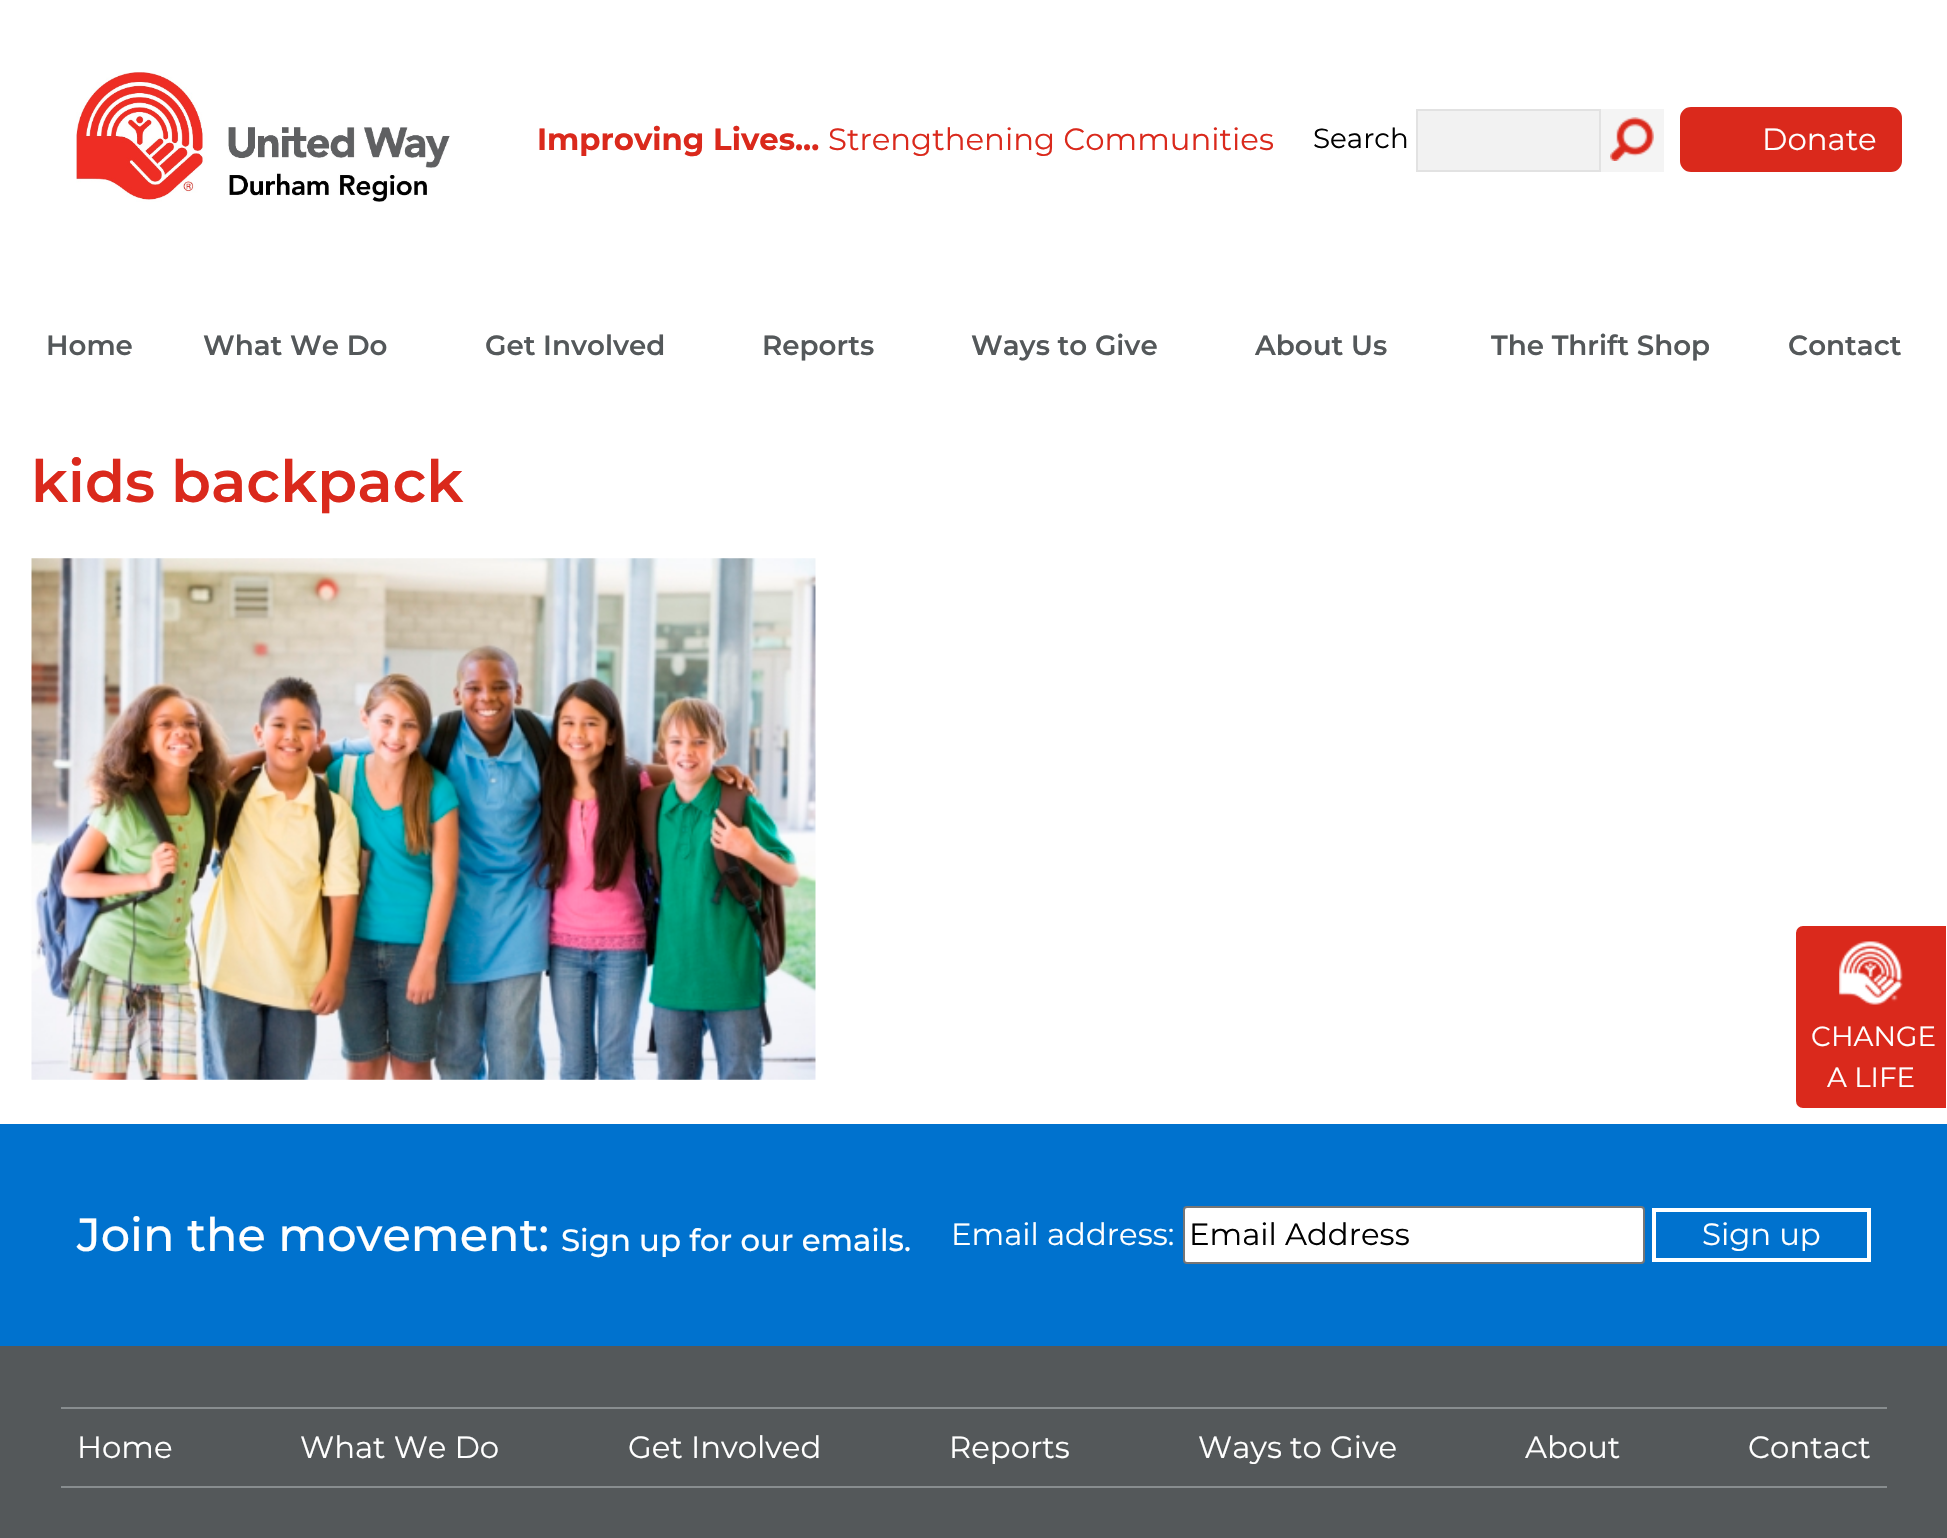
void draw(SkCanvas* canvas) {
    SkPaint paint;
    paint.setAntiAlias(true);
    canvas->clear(0xFFFFFFFF);
    canvas->drawImageRect(SkImages::DeferredFromEncodedData(SkData::MakeFromFileName("img1.png")), SkRect::MakeXYWH(76, 72, 374, 130), SkSamplingOptions());
    SkFont font1(fontMgr->matchFamilyStyle("Montserrat", SkFontStyle::Bold()), 30.75f);
    font1.setSubpixel(true);
    paint.setColor(0xFFDA291C);
    canvas->drawString("Improving Lives...", 537, 150, font1, paint);
    SkFont font2(fontMgr->matchFamilyStyle("Montserrat", SkFontStyle::Normal()), 30.75f);
    font2.setSubpixel(true);
    canvas->drawString("Strengthening Communities", 828, 150, font2, paint);
    SkFont font3(fontMgr->matchFamilyStyle("Montserrat", SkFontStyle::Normal()), 27.75f);
    font3.setSubpixel(true);
    paint.setColor(0xFF010101);
    canvas->drawString("Search", 1313, 148, font3, paint);
    paint.setColor(0xFFF2F2F2);
    canvas->drawRect(SkRect::MakeXYWH(1417, 110, 183, 61), paint);
    paint.setStyle(SkPaint::kStroke_Style);
    paint.setStrokeWidth(2);
    paint.setColor(0xFFE2E2E2);
    canvas->drawRect(SkRect::MakeXYWH(1417, 110, 183, 61), paint);
    paint.setStyle(SkPaint::kFill_Style);
    paint.setColor(0xFFF4F4F4);
    canvas->drawRect(SkRect::MakeXYWH(1601, 109, 63, 63), paint);
    canvas->drawImageRect(SkImages::DeferredFromEncodedData(SkData::MakeFromFileName("img2.png")), SkRect::MakeXYWH(1610, 117, 44, 44), SkSamplingOptions());
    paint.setColor(0xFFDA291C);
    canvas->drawRoundRect(SkRect::MakeXYWH(1681, 108, 220, 63), 10, 10, paint);
    paint.setStyle(SkPaint::kStroke_Style);
    canvas->drawRoundRect(SkRect::MakeXYWH(1681, 108, 220, 63), 10, 10, paint);
    paint.setStyle(SkPaint::kFill_Style);
    paint.setColor(0xFFFFFFFF);
    canvas->drawString("Donate", 1762, 150, font2, paint);
    SkFont font4(fontMgr->matchFamilyStyle("Montserrat", SkFontStyle(600, SkFontStyle::kNormal_Width, SkFontStyle::kUpright_Slant)), 27.75f);
    font4.setSubpixel(true);
    paint.setColor(0xFF54585A);
    canvas->drawString("Home", 46, 355, font4, paint);
    canvas->drawString("What We Do", 203, 355, font4, paint);
    canvas->drawString("Get Involved", 485, 355, font4, paint);
    canvas->drawString("Reports", 762, 355, font4, paint);
    canvas->drawString("Ways to Give", 971, 355, font4, paint);
    canvas->drawString("About Us", 1255, 355, font4, paint);
    canvas->drawString("The Thrift Shop", 1491, 355, font4, paint);
    canvas->drawString("Contact", 1788, 355, font4, paint);
    SkFont font5(fontMgr->matchFamilyStyle("Montserrat", SkFontStyle(600, SkFontStyle::kNormal_Width, SkFontStyle::kUpright_Slant)), 58.25f);
    font5.setSubpixel(true);
    paint.setColor(0xFFDA291C);
    canvas->drawString("kids backpack", 31, 502, font5, paint);
    canvas->drawImageRect(SkImages::DeferredFromEncodedData(SkData::MakeFromFileName("img3.png")), SkRect::MakeXYWH(31, 558, 785, 522), SkSamplingOptions());
    canvas->drawPath(SkPathBuilder().moveTo(1803, 925).lineTo(1947, 925).lineTo(1947, 1109).lineTo(1803, 1109).cubicTo(1798.5f, 1109, 1795, 1105.5f, 1795, 1101).lineTo(1795, 933).cubicTo(1795, 928.5f, 1798.5f, 925, 1803, 925).close().detach(), paint);
    paint.setStyle(SkPaint::kStroke_Style);
    paint.setColor(0xFFFFFFFF);
    canvas->drawPath(SkPathBuilder().moveTo(1803, 925).lineTo(1947, 925).lineTo(1947, 1109).lineTo(1803, 1109).cubicTo(1798.5f, 1109, 1795, 1105.5f, 1795, 1101).lineTo(1795, 933).cubicTo(1795, 928.5f, 1798.5f, 925, 1803, 925).close().detach(), paint);
    canvas->drawImageRect(SkImages::DeferredFromEncodedData(SkData::MakeFromFileName("img4.png")), SkRect::MakeXYWH(1839, 941, 64, 64), SkSamplingOptions());
    paint.setStyle(SkPaint::kFill_Style);
    canvas->drawString("CHANGE", 1811, 1046, font3, paint);
    canvas->drawString("A LIFE", 1827, 1087, font3, paint);
    paint.setColor(0xFF0072CE);
    canvas->drawRect(SkRect::MakeXYWH(0, 1124, 1947, 222), paint);
    SkFont font6(fontMgr->matchFamilyStyle("Montserrat", SkFontStyle(500, SkFontStyle::kNormal_Width, SkFontStyle::kUpright_Slant)), 46.25f);
    font6.setSubpixel(true);
    paint.setColor(0xFFFFFFFF);
    canvas->drawString("Join the movement:", 77, 1251, font6, paint);
    SkFont font7(fontMgr->matchFamilyStyle("Montserrat", SkFontStyle(500, SkFontStyle::kNormal_Width, SkFontStyle::kUpright_Slant)), 30.75f);
    font7.setSubpixel(true);
    canvas->drawString("Sign up for our emails.", 561, 1251, font7, paint);
    canvas->drawString("Email address:", 951, 1245, font2, paint);
    canvas->drawRoundRect(SkRect::MakeXYWH(1184, 1207, 460, 56), 3, 3, paint);
    paint.setStyle(SkPaint::kStroke_Style);
    paint.setColor(0xFF767676);
    canvas->drawRoundRect(SkRect::MakeXYWH(1184, 1207, 460, 56), 3, 3, paint);
    paint.setStyle(SkPaint::kFill_Style);
    paint.setColor(0xFF010101);
    canvas->drawString("Email Address", 1189, 1245, font2, paint);
    paint.setStyle(SkPaint::kStroke_Style);
    paint.setStrokeWidth(4);
    paint.setColor(0xFFFFFFFF);
    canvas->drawRect(SkRect::MakeXYWH(1654, 1210, 215, 50), paint);
    paint.setStyle(SkPaint::kFill_Style);
    canvas->drawString("Sign up", 1702, 1245, font2, paint);
    paint.setColor(0xFF54585A);
    canvas->drawRect(SkRect::MakeXYWH(0, 1346, 1947, 192), paint);
    paint.setColor(0xFF888D8F);
    canvas->drawRect(SkRect::MakeXYWH(61, 1407, 1826, 2), paint);
    canvas->drawRect(SkRect::MakeXYWH(61, 1486, 1826, 2), paint);
    paint.setColor(0xFFFFFFFF);
    canvas->drawString("Home", 77, 1458, font2, paint);
    canvas->drawString("What We Do", 300, 1458, font2, paint);
    canvas->drawString("Get Involved", 628, 1458, font2, paint);
    canvas->drawString("Reports", 949, 1458, font2, paint);
    canvas->drawString("Ways to Give", 1198, 1458, font2, paint);
    canvas->drawString("About", 1525, 1458, font2, paint);
    canvas->drawString("Contact", 1748, 1458, font2, paint);
}
